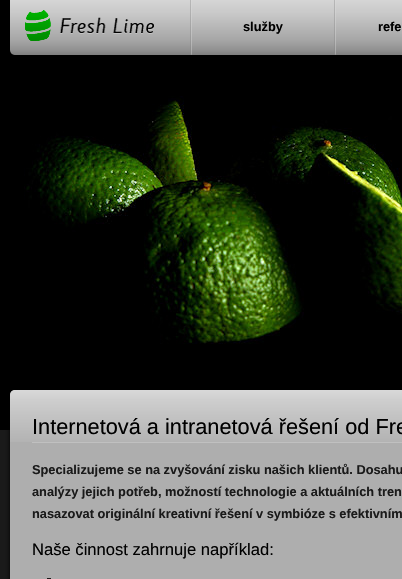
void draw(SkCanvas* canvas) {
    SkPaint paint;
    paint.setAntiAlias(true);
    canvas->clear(0xFF000000);
    canvas->drawImageRect(SkImages::DeferredFromEncodedData(SkData::MakeFromFileName("img1.png")), SkRect::MakeXYWH(0, 0, 402, 55), SkSamplingOptions());
    canvas->drawImageRect(SkImages::DeferredFromEncodedData(SkData::MakeFromFileName("img2.png")), SkRect::MakeXYWH(25, 10, 133, 31), SkSamplingOptions());
    canvas->drawImageRect(SkImages::DeferredFromEncodedData(SkData::MakeFromFileName("img3.png")), SkRect::MakeXYWH(190, 0, 2, 55), SkSamplingOptions());
    SkFont font1(fontMgr->matchFamilyStyle("Liberation Sans", SkFontStyle::Bold()), 12.8f);
    font1.setSubpixel(true);
    paint.setColor(0xFF000000);
    canvas->drawString("služby", 243, 31, font1, paint);
    canvas->drawImageRect(SkImages::DeferredFromEncodedData(SkData::MakeFromFileName("img3.png")), SkRect::MakeXYWH(334, 0, 2, 55), SkSamplingOptions());
    canvas->drawString("refe", 378, 31, font1, paint);
    canvas->drawImageRect(SkImages::DeferredFromEncodedData(SkData::MakeFromFileName("img4.png")), SkRect::MakeXYWH(24, 96, 378, 248), SkSamplingOptions());
    paint.setColor(0xFFAEAEAE);
    canvas->drawRect(SkRect::MakeXYWH(10, 442, 392, 137), paint);
    canvas->drawImageRect(SkImages::DeferredFromEncodedData(SkData::MakeFromFileName("img5.png")), SkRect::MakeXYWH(0, 442, 10, 137), SkSamplingOptions());
    canvas->drawImageRect(SkImages::DeferredFromEncodedData(SkData::MakeFromFileName("img6.png")), SkRect::MakeXYWH(0, 389, 402, 53), SkSamplingOptions());
    paint.setColor(0xFFC0C0C0);
    canvas->drawRect(SkRect::MakeXYWH(32, 442, 370, 1), paint);
    SkFont font2(fontMgr->matchFamilyStyle("Liberation Sans", SkFontStyle::Normal()), 21.75f);
    font2.setSubpixel(true);
    paint.setColor(0xFF000000);
    canvas->drawString("Internetová a intranetová řešení od Fre", 32, 434, font2, paint);
    paint.setColor(0xFF1A1A1A);
    canvas->drawString("Specializujeme se na zvyšování zisku našich klientů. Dosahu", 32, 474, font1, paint);
    canvas->drawString("analýzy jejich potřeb, možností technologie a aktuálních tren", 32, 496, font1, paint);
    canvas->drawString("nasazovat originální kreativní řešení v symbióze s efektivním", 32, 518, font1, paint);
    SkFont font3(fontMgr->matchFamilyStyle("Liberation Sans", SkFontStyle::Normal()), 16.6f);
    font3.setSubpixel(true);
    paint.setColor(0xFF000000);
    canvas->drawString("Naše činnost zahrnuje například:", 32, 555, font3, paint);
    paint.setColor(0xFF1A1A1A);
    canvas->drawRect(SkRect::MakeXYWH(47, 578, 4, 1), paint);
}
